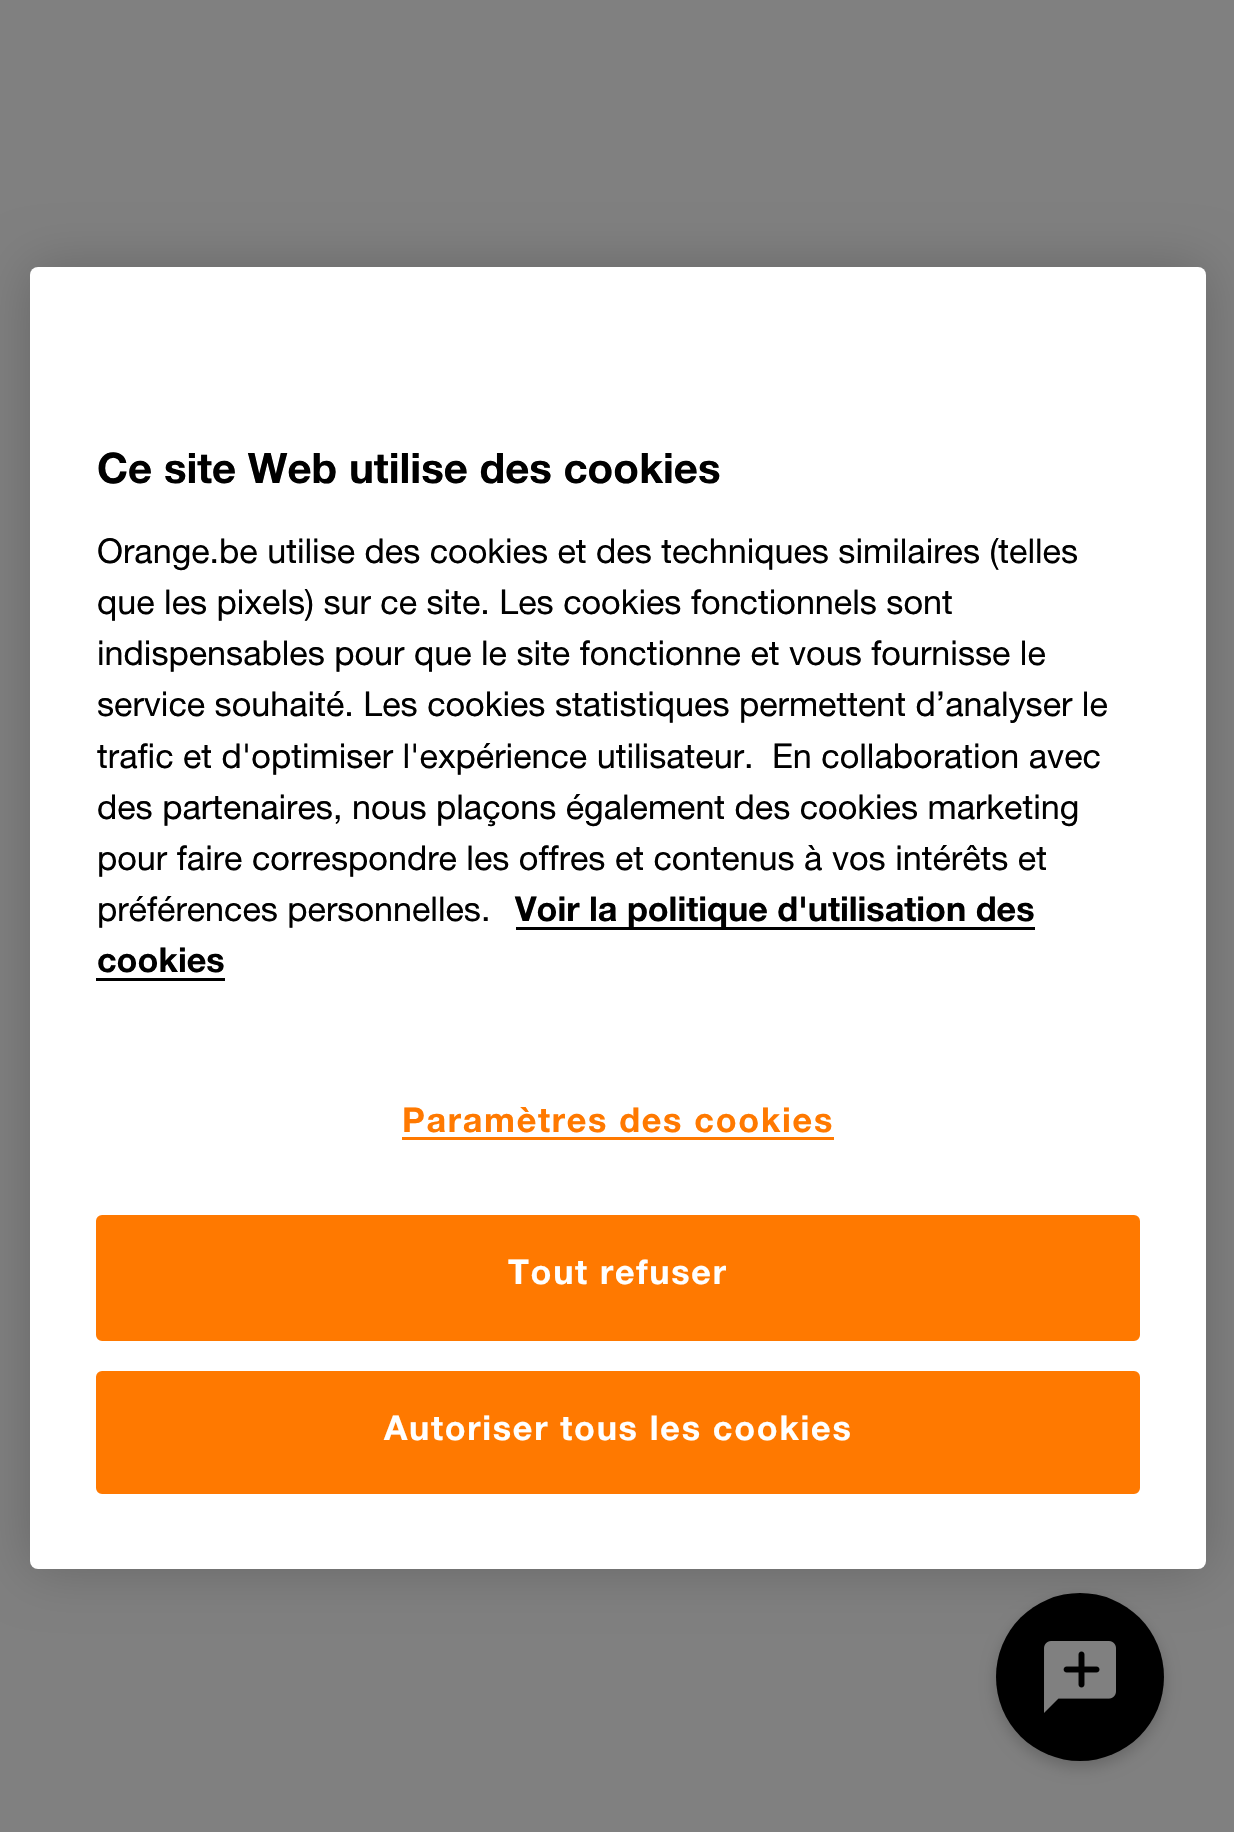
void draw(SkCanvas* canvas) {
    SkPaint paint;
    paint.setAntiAlias(true);
    auto spacedText = [&](const char* s, float x, float y, const SkFont& font, const SkPaint& ink, float letter, float word) {
        std::vector<SkGlyphID> glyphs(font.countText(s, strlen(s), SkTextEncoding::kUTF8));
        std::vector<float> xs(glyphs.size());
        font.textToGlyphs(s, strlen(s), SkTextEncoding::kUTF8, glyphs);
        font.getXPos(glyphs, xs, x);
        float extra = 0;
        for (size_t i = 0; i < glyphs.size(); i++) {
            xs[i] += extra;
            extra += letter + word * (glyphs[i] == font.unicharToGlyph(' '));
        }
        canvas->drawTextBlob(SkTextBlob::MakeFromPosHGlyphs(glyphs, xs, y, font), 0, 0, ink);
    };
    canvas->clear(0xFF808080);
    paint.setColor(0x33000000);
    paint.setMaskFilter(SkMaskFilter::MakeBlur(kNormal_SkBlurStyle, 7.5f));
    canvas->drawRoundRect(SkRect::MakeXYWH(996, 1599, 168, 168), 84, 84, paint);
    paint.setMaskFilter(nullptr);
    paint.setColor(0xFF000000);
    canvas->drawCircle(1080, 1677, 84, paint);
    canvas->drawImageRect(SkImages::DeferredFromEncodedData(SkData::MakeFromFileName("img1.png")), SkRect::MakeXYWH(1044, 1641, 72, 72), SkSamplingOptions());
    paint.setColor(0x33000000);
    paint.setMaskFilter(SkMaskFilter::MakeBlur(kNormal_SkBlurStyle, 27));
    canvas->drawRoundRect(SkRect::MakeXYWH(30, 267, 1176, 1302), 8, 8, paint);
    paint.setMaskFilter(nullptr);
    paint.setColor(0xFFFFFFFF);
    canvas->drawRoundRect(SkRect::MakeXYWH(30, 267, 1176, 1302), 8, 8, paint);
    SkFont font1(fontMgr->matchFamilyStyle("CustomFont", SkFontStyle::Bold()), 42);
    font1.setSubpixel(true);
    paint.setColor(0xFF000000);
    canvas->drawString("Ce site Web utilise des cookies", 97, 483, font1, paint);
    SkFont font2(fontMgr->matchFamilyStyle("CustomFont", SkFontStyle::Normal()), 34.15f);
    font2.setSubpixel(true);
    canvas->drawString("Orange.be utilise des cookies et des techniques similaires (telles", 97, 563, font2, paint);
    canvas->drawString("que les pixels) sur ce site. Les cookies fonctionnels sont", 97, 614, font2, paint);
    canvas->drawString("indispensables pour que le site fonctionne et vous fournisse le", 97, 665, font2, paint);
    canvas->drawString("service souhaité. Les cookies statistiques permettent d’analyser le", 97, 716, font2, paint);
    canvas->drawString("trafic et d'optimiser l'expérience utilisateur.", 97, 768, font2, paint);
    canvas->drawString("En collaboration avec", 772, 768, font2, paint);
    canvas->drawString("des partenaires, nous plaçons également des cookies marketing", 97, 819, font2, paint);
    canvas->drawString("pour faire correspondre les offres et contenus à vos intérêts et", 97, 870, font2, paint);
    canvas->drawString("préférences personnelles.", 97, 921, font2, paint);
    canvas->drawRect(SkRect::MakeXYWH(516, 927, 519, 3), paint);
    SkFont font3(fontMgr->matchFamilyStyle("CustomFont", SkFontStyle::Bold()), 34.15f);
    font3.setSubpixel(true);
    canvas->drawString("Voir la politique d'utilisation des", 515, 921, font3, paint);
    canvas->drawString("cookies", 97, 972, font3, paint);
    canvas->drawRect(SkRect::MakeXYWH(96, 978, 129, 3), paint);
    paint.setColor(0xFFFF7900);
    spacedText("Paramètres des cookies", 402, 1132, font3, paint, 1.7f, 0);
    canvas->drawRect(SkRect::MakeXYWH(402, 1137, 432, 3), paint);
    canvas->drawRoundRect(SkRect::MakeXYWH(97.5f, 1216.5f, 1041, 123), 4.5f, 4.5f, paint);
    paint.setStyle(SkPaint::kStroke_Style);
    paint.setStrokeWidth(3);
    canvas->drawRoundRect(SkRect::MakeXYWH(97.5f, 1216.5f, 1041, 123), 4.5f, 4.5f, paint);
    paint.setStyle(SkPaint::kFill_Style);
    paint.setColor(0xFFFFFFFF);
    spacedText("Tout refuser", 508, 1284, font3, paint, 1.7f, 0);
    paint.setColor(0xFFFF7900);
    canvas->drawRoundRect(SkRect::MakeXYWH(97.5f, 1372.5f, 1041, 120), 4.5f, 4.5f, paint);
    paint.setStyle(SkPaint::kStroke_Style);
    canvas->drawRoundRect(SkRect::MakeXYWH(97.5f, 1372.5f, 1041, 120), 4.5f, 4.5f, paint);
    paint.setStyle(SkPaint::kFill_Style);
    paint.setColor(0xFFFFFFFF);
    spacedText("Autoriser tous les cookies", 384, 1440, font3, paint, 1.7f, 0);
}
